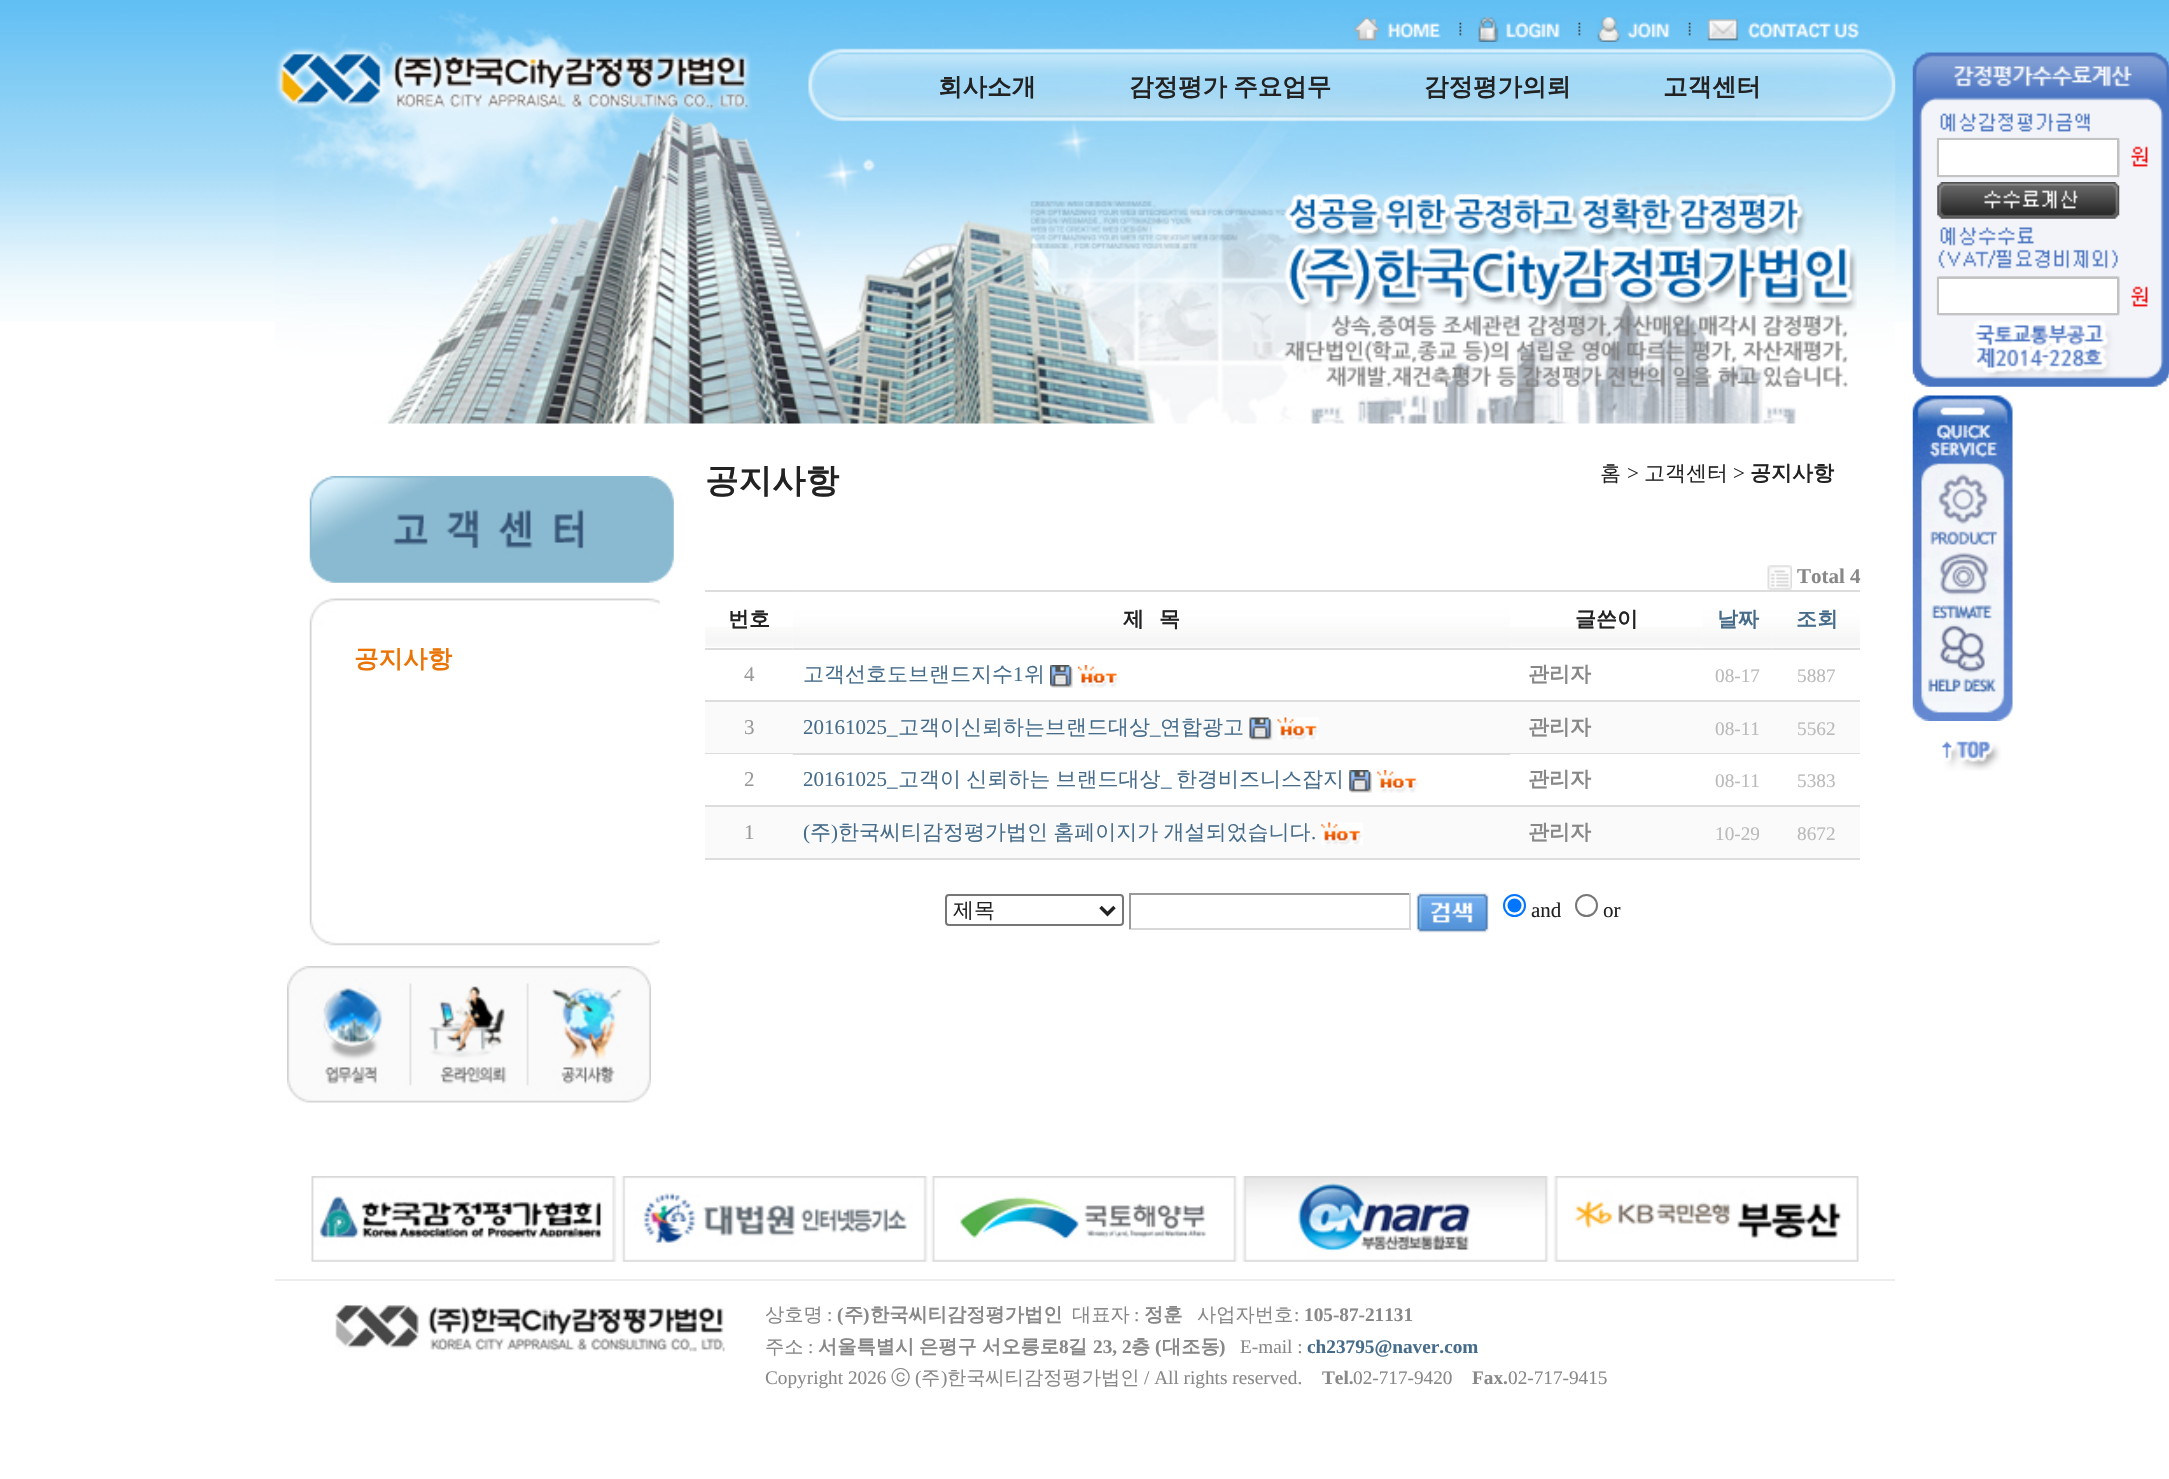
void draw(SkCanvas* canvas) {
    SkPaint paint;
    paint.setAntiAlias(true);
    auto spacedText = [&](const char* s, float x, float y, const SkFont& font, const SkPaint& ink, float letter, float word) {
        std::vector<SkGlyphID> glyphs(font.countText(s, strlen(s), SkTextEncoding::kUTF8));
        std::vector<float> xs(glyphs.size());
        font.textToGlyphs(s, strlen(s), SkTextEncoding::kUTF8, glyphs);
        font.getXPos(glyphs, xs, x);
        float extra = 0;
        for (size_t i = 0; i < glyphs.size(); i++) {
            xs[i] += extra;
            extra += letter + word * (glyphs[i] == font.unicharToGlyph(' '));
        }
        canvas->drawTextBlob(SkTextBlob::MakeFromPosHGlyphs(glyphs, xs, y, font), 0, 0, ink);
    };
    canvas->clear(0xFFFFFFFF);
    canvas->drawImageRect(SkImages::DeferredFromEncodedData(SkData::MakeFromFileName("img1.png")), SkRect::MakeXYWH(0, 0, 2169, 322), SkSamplingOptions());
    canvas->drawImageRect(SkImages::DeferredFromEncodedData(SkData::MakeFromFileName("img2.png")), SkRect::MakeXYWH(275, 10, 1621, 414), SkSamplingOptions());
    canvas->drawImageRect(SkImages::DeferredFromEncodedData(SkData::MakeFromFileName("img3.png")), SkRect::MakeXYWH(1354, 17, 87, 24), SkSamplingOptions());
    canvas->drawImageRect(SkImages::DeferredFromEncodedData(SkData::MakeFromFileName("img4.png")), SkRect::MakeXYWH(1459, 22, 3, 14), SkSamplingOptions());
    canvas->drawImageRect(SkImages::DeferredFromEncodedData(SkData::MakeFromFileName("img5.png")), SkRect::MakeXYWH(1478, 17, 83, 25), SkSamplingOptions());
    canvas->drawImageRect(SkImages::DeferredFromEncodedData(SkData::MakeFromFileName("img6.png")), SkRect::MakeXYWH(1578, 22, 3, 14), SkSamplingOptions());
    canvas->drawImageRect(SkImages::DeferredFromEncodedData(SkData::MakeFromFileName("img7.png")), SkRect::MakeXYWH(1596, 17, 74, 25), SkSamplingOptions());
    canvas->drawImageRect(SkImages::DeferredFromEncodedData(SkData::MakeFromFileName("img8.png")), SkRect::MakeXYWH(1688, 22, 3, 14), SkSamplingOptions());
    canvas->drawImageRect(SkImages::DeferredFromEncodedData(SkData::MakeFromFileName("img9.png")), SkRect::MakeXYWH(1707, 18, 152, 23), SkSamplingOptions());
    canvas->drawImageRect(SkImages::DeferredFromEncodedData(SkData::MakeFromFileName("img10.png")), SkRect::MakeXYWH(275, 47, 477, 67), SkSamplingOptions());
    SkFont font1(fontMgr->matchFamilyStyle("WenQuanYi Zen Hei", SkFontStyle::Bold()), 24.5f);
    font1.setSubpixel(true);
    paint.setColor(0xFF222222);
    canvas->drawString("회사소개", 938, 95, font1, paint);
    spacedText("감정평가 주요업무", 1129, 95, font1, paint, 0, -1);
    canvas->drawString("감정평가의뢰", 1424, 95, font1, paint);
    canvas->drawString("고객센터", 1663, 95, font1, paint);
    canvas->drawImageRect(SkImages::DeferredFromEncodedData(SkData::MakeFromFileName("img11.png")), SkRect::MakeXYWH(1284, 192, 523, 50), SkSamplingOptions());
    canvas->drawImageRect(SkImages::DeferredFromEncodedData(SkData::MakeFromFileName("img12.png")), SkRect::MakeXYWH(1284, 243, 573, 70), SkSamplingOptions());
    canvas->drawImageRect(SkImages::DeferredFromEncodedData(SkData::MakeFromFileName("img13.png")), SkRect::MakeXYWH(1284, 315, 564, 72), SkSamplingOptions());
    canvas->drawImageRect(SkImages::DeferredFromEncodedData(SkData::MakeFromFileName("img14.png")), SkRect::MakeXYWH(1912, 52, 257, 335), SkSamplingOptions());
    paint.setColor(0xFFFFFFFF);
    canvas->drawRect(SkRect::MakeXYWH(1938, 139, 180, 37), paint);
    paint.setStyle(SkPaint::kStroke_Style);
    paint.setStrokeWidth(2);
    paint.setColor(0xFFC3C3C3);
    canvas->drawRect(SkRect::MakeXYWH(1938, 139, 180, 37), paint);
    canvas->drawImageRect(SkImages::DeferredFromEncodedData(SkData::MakeFromFileName("img15.png")), SkRect::MakeXYWH(1937, 182, 183, 37), SkSamplingOptions());
    paint.setStyle(SkPaint::kFill_Style);
    paint.setColor(0xFFFFFFFF);
    canvas->drawRect(SkRect::MakeXYWH(1938, 278, 180, 36), paint);
    paint.setStyle(SkPaint::kStroke_Style);
    paint.setColor(0xFFC3C3C3);
    canvas->drawRect(SkRect::MakeXYWH(1938, 278, 180, 36), paint);
    canvas->drawImageRect(SkImages::DeferredFromEncodedData(SkData::MakeFromFileName("img16.png")), SkRect::MakeXYWH(1912, 395, 101, 326), SkSamplingOptions());
    canvas->drawImageRect(SkImages::DeferredFromEncodedData(SkData::MakeFromFileName("img17.png")), SkRect::MakeXYWH(1942, 740, 59, 31), SkSamplingOptions());
    canvas->drawImageRect(SkImages::DeferredFromEncodedData(SkData::MakeFromFileName("img18.png")), SkRect::MakeXYWH(309, 598, 351, 348), SkSamplingOptions());
    canvas->drawImageRect(SkImages::DeferredFromEncodedData(SkData::MakeFromFileName("img19.png")), SkRect::MakeXYWH(309, 476, 365, 107), SkSamplingOptions());
    paint.setStyle(SkPaint::kFill_Style);
    paint.setColor(0xFFEA7406);
    canvas->drawString("공지사항", 354, 667, font1, paint);
    canvas->drawImageRect(SkImages::DeferredFromEncodedData(SkData::MakeFromFileName("img20.png")), SkRect::MakeXYWH(287, 966, 364, 137), SkSamplingOptions());
    SkFont font2(fontMgr->matchFamilyStyle("WenQuanYi Zen Hei", SkFontStyle::Bold()), 33.5f);
    font2.setSubpixel(true);
    paint.setColor(0xFF222222);
    canvas->drawString("공지사항", 705, 492, font2, paint);
    SkFont font3(fontMgr->matchFamilyStyle("WenQuanYi Zen Hei", SkFontStyle(500, SkFontStyle::kNormal_Width, SkFontStyle::kUpright_Slant)), 21);
    font3.setSubpixel(true);
    canvas->drawString("홈", 1600, 480, font3, paint);
    SkFont font4(fontMgr->matchFamilyStyle("Liberation Serif", SkFontStyle::Normal()), 21);
    font4.setSubpixel(true);
    canvas->drawString(">", 1627, 480, font4, paint);
    canvas->drawString("고객센터", 1644, 480, font3, paint);
    canvas->drawString(">", 1733, 480, font4, paint);
    SkFont font5(fontMgr->matchFamilyStyle("WenQuanYi Zen Hei", SkFontStyle::Bold()), 21);
    font5.setSubpixel(true);
    canvas->drawString("공지사항", 1750, 480, font5, paint);
    canvas->drawImageRect(SkImages::DeferredFromEncodedData(SkData::MakeFromFileName("img21.png")), SkRect::MakeXYWH(1767, 565, 25, 25), SkSamplingOptions());
    SkFont font6(fontMgr->matchFamilyStyle("Liberation Serif", SkFontStyle::Bold()), 21);
    font6.setSubpixel(true);
    paint.setColor(0xFF888888);
    canvas->drawString("Total 4", 1797, 583, font6, paint);
    canvas->drawImageRect(SkImages::DeferredFromEncodedData(SkData::MakeFromFileName("img22.png")), SkRect::MakeXYWH(705, 627, 88, 20), SkSamplingOptions());
    paint.setColor(0xFFDDDDDD);
    canvas->drawRect(SkRect::MakeXYWH(705, 590, 88, 2), paint);
    canvas->drawRect(SkRect::MakeXYWH(705, 648, 88, 2), paint);
    paint.setColor(0xFF222222);
    canvas->drawString("번호", 728, 626, font5, paint);
    canvas->drawImageRect(SkImages::DeferredFromEncodedData(SkData::MakeFromFileName("img23.png")), SkRect::MakeXYWH(792, 591, 718, 58), SkSamplingOptions());
    paint.setColor(0xFFDDDDDD);
    canvas->drawRect(SkRect::MakeXYWH(793, 590, 910, 2), paint);
    canvas->drawRect(SkRect::MakeXYWH(793, 648, 910, 2), paint);
    paint.setColor(0xFF222222);
    canvas->drawString("제", 1123, 626, font5, paint);
    canvas->drawString("목", 1159, 626, font5, paint);
    canvas->drawImageRect(SkImages::DeferredFromEncodedData(SkData::MakeFromFileName("img24.png")), SkRect::MakeXYWH(1510, 627, 193, 20), SkSamplingOptions());
    canvas->drawString("글쓴이", 1575, 626, font5, paint);
    canvas->drawImageRect(SkImages::DeferredFromEncodedData(SkData::MakeFromFileName("img25.png")), SkRect::MakeXYWH(1702, 591, 71, 58), SkSamplingOptions());
    paint.setColor(0xFFDDDDDD);
    canvas->drawRect(SkRect::MakeXYWH(1703, 590, 70, 2), paint);
    canvas->drawRect(SkRect::MakeXYWH(1703, 648, 70, 2), paint);
    paint.setColor(0xFF466C8A);
    canvas->drawString("날짜", 1717, 626, font5, paint);
    canvas->drawImageRect(SkImages::DeferredFromEncodedData(SkData::MakeFromFileName("img26.png")), SkRect::MakeXYWH(1772, 591, 88, 58), SkSamplingOptions());
    paint.setColor(0xFFDDDDDD);
    canvas->drawRect(SkRect::MakeXYWH(1773, 590, 87, 2), paint);
    canvas->drawRect(SkRect::MakeXYWH(1773, 648, 87, 2), paint);
    paint.setColor(0xFF466C8A);
    canvas->drawString("조회", 1796, 626, font5, paint);
    paint.setColor(0xFFDDDDDD);
    canvas->drawRect(SkRect::MakeXYWH(705, 700, 88, 2), paint);
    paint.setColor(0xFF999999);
    canvas->drawString("4", 744, 681, font4, paint);
    paint.setColor(0xFF466C8A);
    canvas->drawString("고객선호도브랜드지수", 803, 681, font3, paint);
    canvas->drawString("1", 1013, 681, font4, paint);
    canvas->drawString("위", 1024, 681, font3, paint);
    canvas->drawImageRect(SkImages::DeferredFromEncodedData(SkData::MakeFromFileName("img27.png")), SkRect::MakeXYWH(1050, 665, 23, 23), SkSamplingOptions());
    canvas->drawImageRect(SkImages::DeferredFromEncodedData(SkData::MakeFromFileName("img28.png")), SkRect::MakeXYWH(1078, 665, 42, 23), SkSamplingOptions());
    paint.setColor(0xFFDDDDDD);
    canvas->drawRect(SkRect::MakeXYWH(793, 700, 1067, 2), paint);
    paint.setColor(0xFF888888);
    canvas->drawString("관리자", 1528, 681, font5, paint);
    SkFont font7(fontMgr->matchFamilyStyle("Liberation Serif", SkFontStyle::Normal()), 19.25f);
    font7.setSubpixel(true);
    paint.setColor(0xFFBABABA);
    canvas->drawString("08-17", 1715, 682, font7, paint);
    canvas->drawString("5887", 1797, 682, font7, paint);
    paint.setColor(0xFFFAFAFA);
    canvas->drawRect(SkRect::MakeXYWH(705, 702, 1155, 51), paint);
    paint.setColor(0xFFDDDDDD);
    canvas->drawRect(SkRect::MakeXYWH(705, 753, 88, 1), paint);
    paint.setColor(0xFF999999);
    canvas->drawString("3", 744, 734, font4, paint);
    paint.setColor(0xFFDDDDDD);
    canvas->drawRect(SkRect::MakeXYWH(793, 753, 717, 2), paint);
    paint.setColor(0xFF466C8A);
    canvas->drawString("20161025_", 803, 734, font4, paint);
    canvas->drawString("고객이신뢰하는브랜드대상", 898, 734, font3, paint);
    canvas->drawString("_", 1150, 734, font4, paint);
    canvas->drawString("연합광고", 1160, 734, font3, paint);
    canvas->drawImageRect(SkImages::DeferredFromEncodedData(SkData::MakeFromFileName("img29.png")), SkRect::MakeXYWH(1249, 717, 24, 24), SkSamplingOptions());
    canvas->drawImageRect(SkImages::DeferredFromEncodedData(SkData::MakeFromFileName("img30.png")), SkRect::MakeXYWH(1277, 717, 42, 23), SkSamplingOptions());
    paint.setColor(0xFFDDDDDD);
    canvas->drawRect(SkRect::MakeXYWH(1510, 753, 350, 1), paint);
    paint.setColor(0xFF888888);
    canvas->drawString("관리자", 1528, 734, font5, paint);
    paint.setColor(0xFFBABABA);
    canvas->drawString("08-11", 1715, 735, font7, paint);
    canvas->drawString("5562", 1797, 735, font7, paint);
    paint.setColor(0xFFDDDDDD);
    canvas->drawRect(SkRect::MakeXYWH(705, 805, 88, 2), paint);
    paint.setColor(0xFF999999);
    canvas->drawString("2", 744, 786, font4, paint);
    paint.setColor(0xFF466C8A);
    canvas->drawString("20161025_", 803, 786, font4, paint);
    spacedText("고객이 신뢰하는 브랜드대상", 898, 786, font3, paint, 0, -1);
    canvas->drawString("_", 1161, 786, font4, paint);
    canvas->drawString("한경비즈니스잡지", 1176, 786, font3, paint);
    canvas->drawImageRect(SkImages::DeferredFromEncodedData(SkData::MakeFromFileName("img31.png")), SkRect::MakeXYWH(1349, 770, 23, 23), SkSamplingOptions());
    canvas->drawImageRect(SkImages::DeferredFromEncodedData(SkData::MakeFromFileName("img32.png")), SkRect::MakeXYWH(1377, 770, 42, 23), SkSamplingOptions());
    paint.setColor(0xFFDDDDDD);
    canvas->drawRect(SkRect::MakeXYWH(793, 805, 1067, 2), paint);
    paint.setColor(0xFF888888);
    canvas->drawString("관리자", 1528, 786, font5, paint);
    paint.setColor(0xFFBABABA);
    canvas->drawString("08-11", 1715, 787, font7, paint);
    canvas->drawString("5383", 1797, 787, font7, paint);
    paint.setColor(0xFFFAFAFA);
    canvas->drawRect(SkRect::MakeXYWH(705, 807, 1155, 51), paint);
    paint.setColor(0xFFDDDDDD);
    canvas->drawRect(SkRect::MakeXYWH(705, 858, 88, 2), paint);
    paint.setColor(0xFF999999);
    canvas->drawString("1", 744, 839, font4, paint);
    paint.setColor(0xFF466C8A);
    canvas->drawString("(", 803, 839, font4, paint);
    canvas->drawString("주", 810, 839, font3, paint);
    canvas->drawString(")", 831, 839, font4, paint);
    spacedText("한국씨티감정평가법인 홈페이지가 개설되었습니다", 838, 839, font3, paint, 0, -1);
    canvas->drawString(".", 1311, 839, font4, paint);
    canvas->drawImageRect(SkImages::DeferredFromEncodedData(SkData::MakeFromFileName("img33.png")), SkRect::MakeXYWH(1321, 822, 42, 23), SkSamplingOptions());
    paint.setColor(0xFFDDDDDD);
    canvas->drawRect(SkRect::MakeXYWH(793, 858, 1067, 2), paint);
    paint.setColor(0xFF888888);
    canvas->drawString("관리자", 1528, 839, font5, paint);
    paint.setColor(0xFFBABABA);
    canvas->drawString("10-29", 1715, 840, font7, paint);
    canvas->drawString("8672", 1797, 840, font7, paint);
    paint.setStyle(SkPaint::kStroke_Style);
    paint.setColor(0xFF767676);
    canvas->drawRoundRect(SkRect::MakeXYWH(946, 895, 177, 30), 3, 3, paint);
    paint.setStrokeWidth(3.5f);
    paint.setColor(0xFF222222);
    canvas->drawPath(SkPathBuilder().moveTo(1100.5f, 907).lineTo(1107.5f, 914).lineTo(1114.5f, 907).detach(), paint);
    paint.setStyle(SkPaint::kFill_Style);
    canvas->drawString("제목", 953, 917, font3, paint);
    paint.setColor(0xFF9A9A9A);
    canvas->drawRect(SkRect::MakeXYWH(1129, 893, 282, 2), paint);
    paint.setColor(0xFFD8D8D8);
    canvas->drawRect(SkRect::MakeXYWH(1409, 893, 2, 36), paint);
    canvas->drawRect(SkRect::MakeXYWH(1129, 928, 282, 2), paint);
    paint.setColor(0xFF9A9A9A);
    canvas->drawRect(SkRect::MakeXYWH(1129, 893, 2, 36), paint);
    canvas->drawImageRect(SkImages::DeferredFromEncodedData(SkData::MakeFromFileName("img34.png")), SkRect::MakeXYWH(1416, 892, 73, 41), SkSamplingOptions());
    paint.setStyle(SkPaint::kStroke_Style);
    paint.setStrokeWidth(2);
    paint.setColor(0xFF0075FF);
    canvas->drawCircle(1514.5f, 905.5f, 10.5f, paint);
    paint.setStyle(SkPaint::kFill_Style);
    canvas->drawCircle(1514.5f, 905.5f, 7, paint);
    paint.setColor(0xFF222222);
    canvas->drawString("and", 1531, 917, font4, paint);
    paint.setStyle(SkPaint::kStroke_Style);
    paint.setColor(0xFF767676);
    canvas->drawCircle(1586.5f, 905.5f, 10.5f, paint);
    paint.setStyle(SkPaint::kFill_Style);
    paint.setColor(0xFF222222);
    canvas->drawString("or", 1603, 917, font4, paint);
    canvas->drawImageRect(SkImages::DeferredFromEncodedData(SkData::MakeFromFileName("img35.png")), SkRect::MakeXYWH(311, 1176, 1548, 86), SkSamplingOptions());
    paint.setColor(0xFFEDEDED);
    canvas->drawRect(SkRect::MakeXYWH(275, 1279, 1620, 2), paint);
    canvas->drawImageRect(SkImages::DeferredFromEncodedData(SkData::MakeFromFileName("img36.png")), SkRect::MakeXYWH(335, 1305, 390, 47), SkSamplingOptions());
    SkFont font8(fontMgr->matchFamilyStyle("WenQuanYi Zen Hei", SkFontStyle(500, SkFontStyle::kNormal_Width, SkFontStyle::kUpright_Slant)), 19.25f);
    font8.setSubpixel(true);
    paint.setColor(0xFF888888);
    canvas->drawString("상호명", 765, 1321, font8, paint);
    canvas->drawString(":", 827, 1321, font7, paint);
    SkFont font9(fontMgr->matchFamilyStyle("Liberation Serif", SkFontStyle::Bold()), 19.25f);
    font9.setSubpixel(true);
    canvas->drawString("(", 837, 1321, font9, paint);
    SkFont font10(fontMgr->matchFamilyStyle("WenQuanYi Zen Hei", SkFontStyle::Bold()), 19.25f);
    font10.setSubpixel(true);
    canvas->drawString("주", 844, 1321, font10, paint);
    canvas->drawString(")", 863, 1321, font9, paint);
    canvas->drawString("한국씨티감정평가법인", 870, 1321, font10, paint);
    canvas->drawString("대표자", 1072, 1321, font8, paint);
    canvas->drawString(":", 1134, 1321, font7, paint);
    canvas->drawString("정훈", 1144, 1321, font10, paint);
    canvas->drawString("사업자번호", 1197, 1321, font8, paint);
    canvas->drawString(":", 1294, 1321, font7, paint);
    canvas->drawString("105-87-21131", 1304, 1321, font9, paint);
    canvas->drawString("주소", 765, 1353, font8, paint);
    canvas->drawString(":", 808, 1353, font7, paint);
    canvas->drawString("서울특별시", 818, 1353, font10, paint);
    canvas->drawString("은평구", 919, 1353, font10, paint);
    canvas->drawString("서오릉로", 982, 1353, font10, paint);
    canvas->drawString("8", 1059, 1353, font9, paint);
    canvas->drawString("길", 1068, 1353, font10, paint);
    canvas->drawString("23, 2", 1093, 1353, font9, paint);
    canvas->drawString("층", 1131, 1353, font10, paint);
    canvas->drawString("(", 1155, 1353, font9, paint);
    canvas->drawString("대조동", 1162, 1353, font10, paint);
    canvas->drawString(")", 1219, 1353, font9, paint);
    canvas->drawString("E-mail :", 1240, 1353, font7, paint);
    paint.setColor(0xFF466C8A);
    canvas->drawString("ch23795@naver.com", 1307, 1353, font9, paint);
    paint.setColor(0xFF888888);
    canvas->drawString("Copyright 2026", 765, 1384, font7, paint);
    canvas->drawString("ⓒ", 891, 1384, font8, paint);
    canvas->drawString("(", 915, 1384, font7, paint);
    canvas->drawString("주", 921, 1384, font8, paint);
    canvas->drawString(")", 941, 1384, font7, paint);
    canvas->drawString("한국씨티감정평가법인", 947, 1384, font8, paint);
    canvas->drawString("/ All rights reserved.", 1144, 1384, font7, paint);
    canvas->drawString("Tel.", 1322, 1384, font9, paint);
    canvas->drawString("02-717-9420", 1353, 1384, font7, paint);
    canvas->drawString("Fax.", 1472, 1384, font9, paint);
    canvas->drawString("02-717-9415", 1508, 1384, font7, paint);
}
